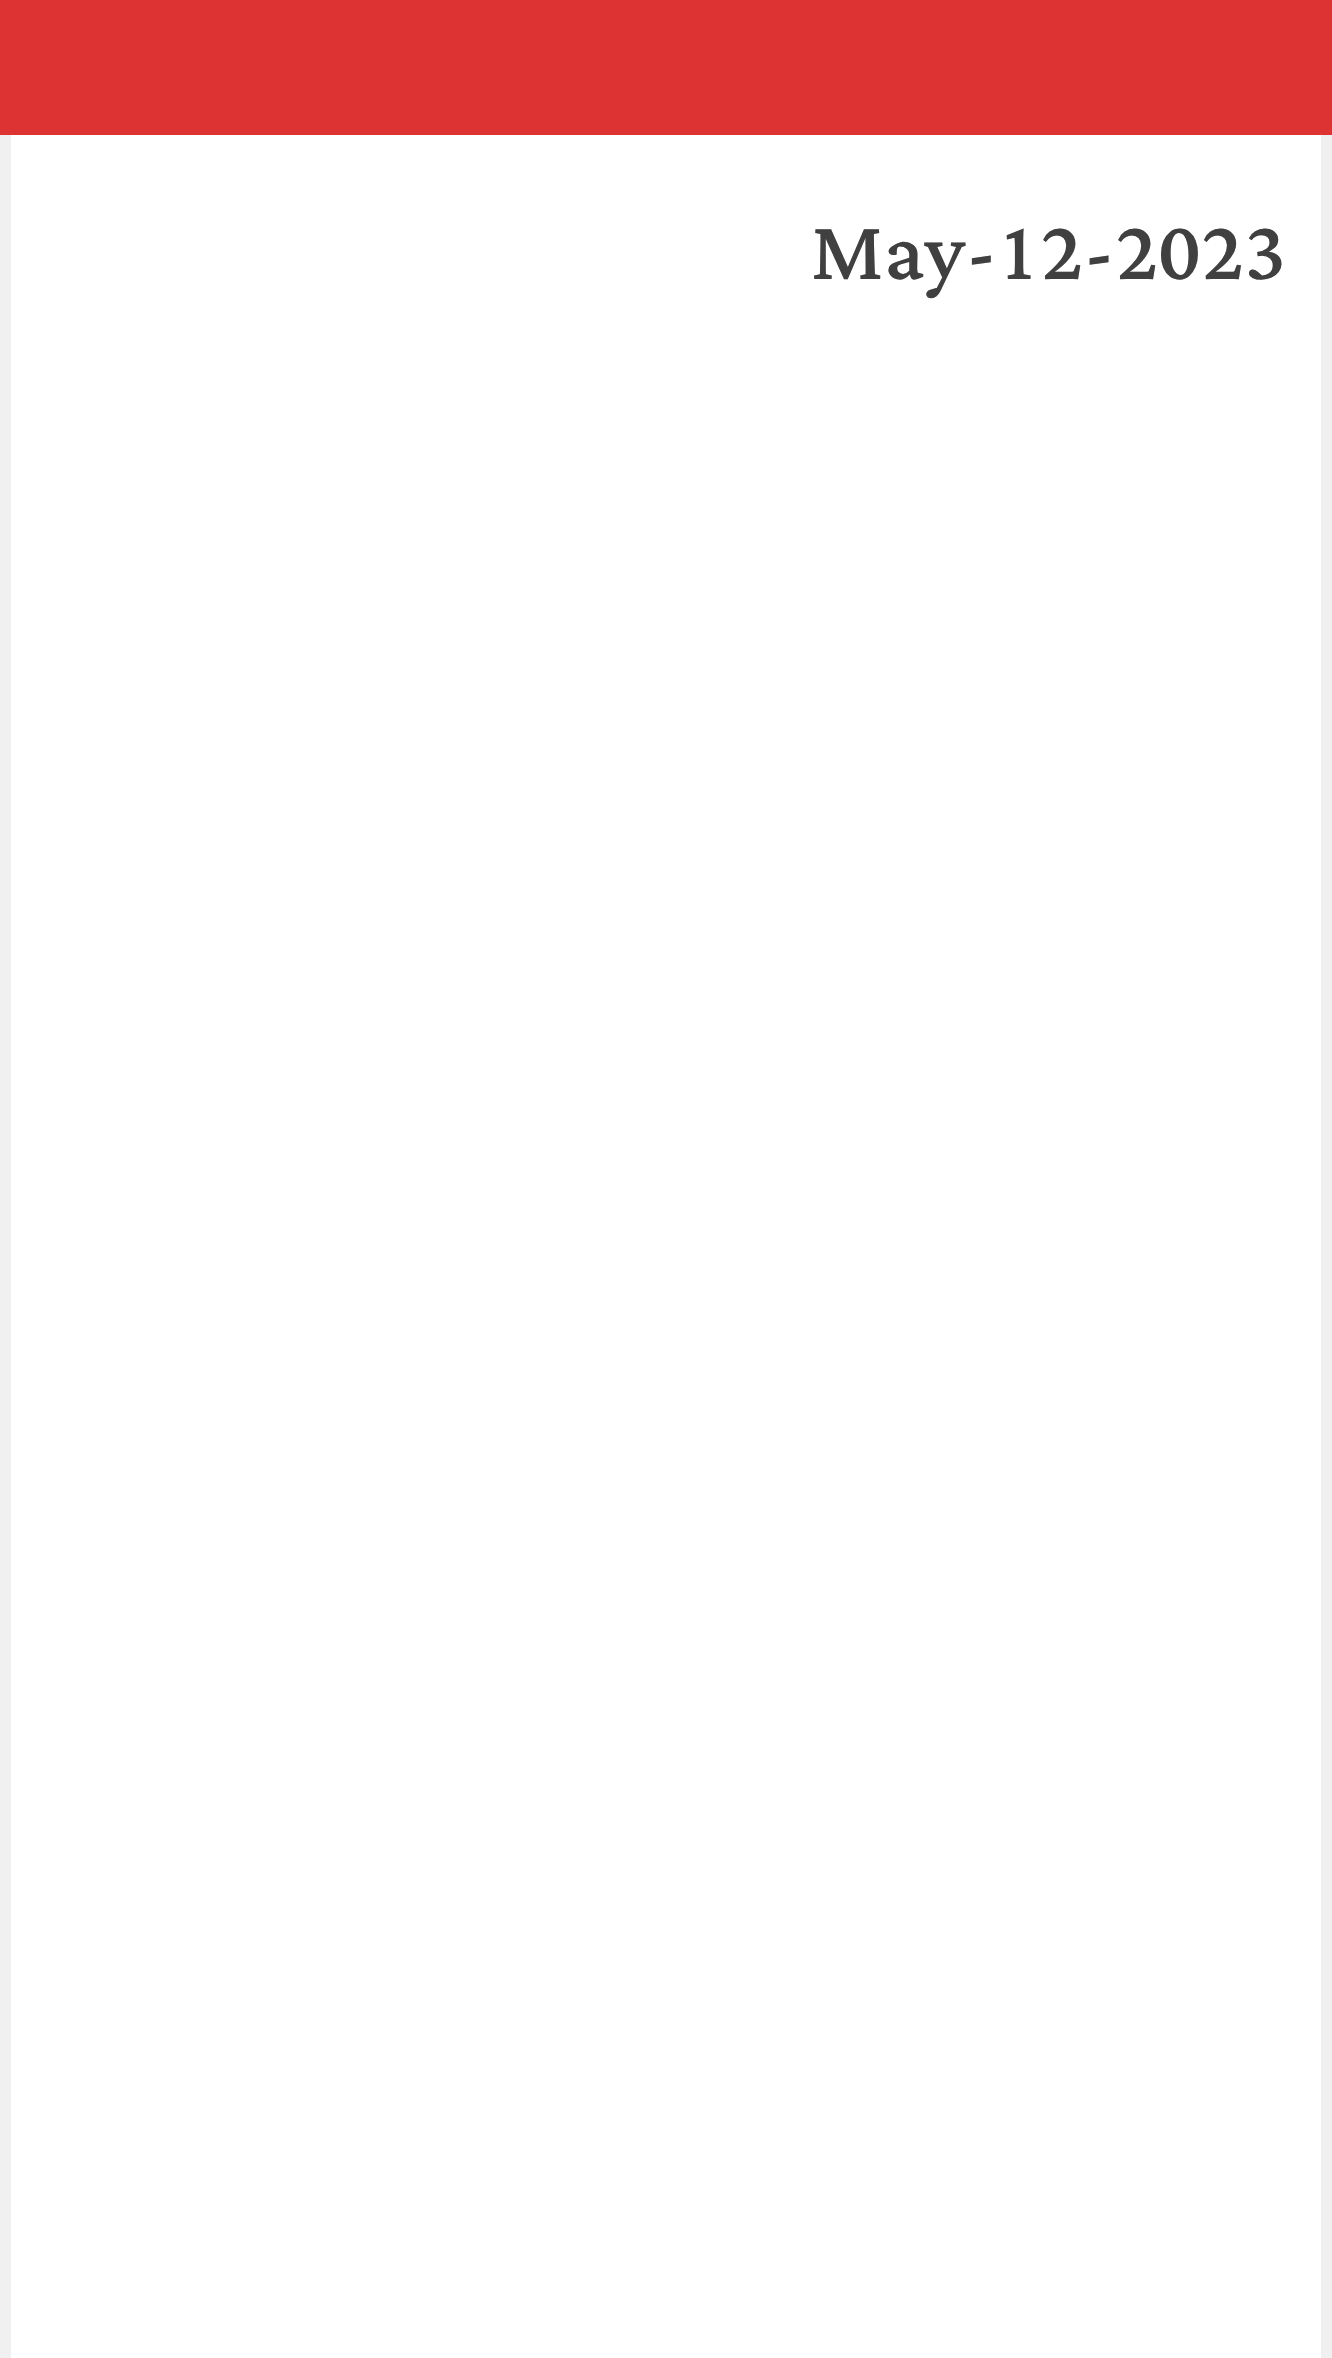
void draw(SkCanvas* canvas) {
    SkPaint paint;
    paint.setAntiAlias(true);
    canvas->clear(0xFFFFFFFF);
    paint.setColor(0xFFF0F0F0);
    canvas->drawRect(SkRect::MakeXYWH(1321, 135, 11, 2223), paint);
    canvas->drawRect(SkRect::MakeXYWH(0, 135, 11, 2223), paint);
    paint.setColor(0xFFDD3333);
    canvas->drawRect(SkRect::MakeXYWH(0, 0, 1332, 135), paint);
    SkFont font1(fontMgr->matchFamilyStyle("Lateef", SkFontStyle::Normal()), 108);
    font1.setSubpixel(true);
    paint.setColor(0xFF404040);
    canvas->drawString("May-12-2023", 811, 279, font1, paint);
}
